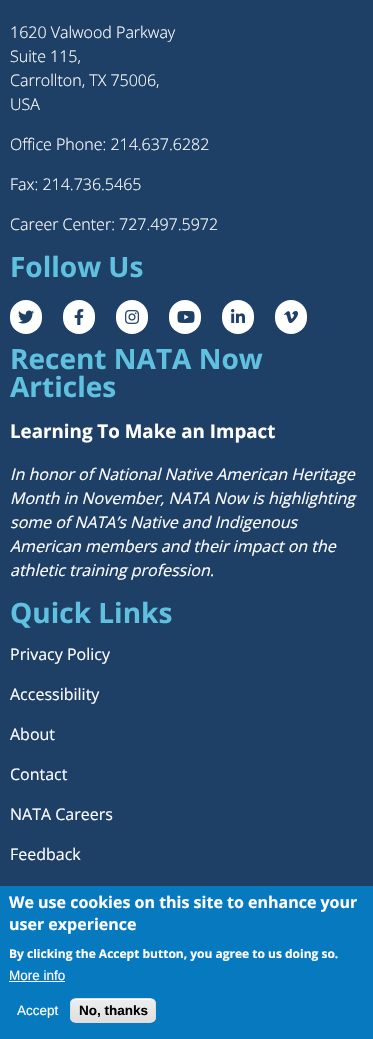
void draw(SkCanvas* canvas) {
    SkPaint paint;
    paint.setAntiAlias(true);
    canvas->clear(0xFF1E3F66);
    SkFont font1(fontMgr->matchFamilyStyle("Open Sans", SkFontStyle(300, SkFontStyle::kNormal_Width, SkFontStyle::kUpright_Slant)), 16);
    font1.setSubpixel(true);
    paint.setColor(0xFFFFFFFF);
    canvas->drawString("1620 Valwood Parkway", 10, 38, font1, paint);
    canvas->drawString("Suite 115,", 10, 62, font1, paint);
    canvas->drawString("Carrollton, TX 75006,", 10, 86, font1, paint);
    canvas->drawString("USA", 10, 110, font1, paint);
    canvas->drawString("Office Phone: 214.637.6282", 10, 150, font1, paint);
    canvas->drawString("Fax: 214.736.5465", 10, 190, font1, paint);
    canvas->drawString("Career Center: 727.497.5972", 10, 230, font1, paint);
    SkFont font2(fontMgr->matchFamilyStyle("Open Sans", SkFontStyle::Bold()), 28);
    font2.setSubpixel(true);
    paint.setColor(0xFF5FC1DF);
    canvas->drawString("Follow Us", 10, 277, font2, paint);
    paint.setColor(0xFFFFFFFF);
    canvas->drawRoundRect(SkRect::MakeXYWH(10, 300, 32, 34), 16, 16, paint);
    canvas->drawImageRect(SkImages::DeferredFromEncodedData(SkData::MakeFromFileName("img1.png")), SkRect::MakeXYWH(18, 310, 16, 14), SkSamplingOptions());
    canvas->drawRoundRect(SkRect::MakeXYWH(63, 300, 32, 34), 16, 16, paint);
    canvas->drawImageRect(SkImages::DeferredFromEncodedData(SkData::MakeFromFileName("img2.png")), SkRect::MakeXYWH(74, 309, 10, 16), SkSamplingOptions());
    canvas->drawRoundRect(SkRect::MakeXYWH(116, 300, 32, 34), 16, 16, paint);
    canvas->drawImageRect(SkImages::DeferredFromEncodedData(SkData::MakeFromFileName("img3.png")), SkRect::MakeXYWH(125, 310, 14, 14), SkSamplingOptions());
    canvas->drawRoundRect(SkRect::MakeXYWH(169, 300, 32, 34), 16, 16, paint);
    canvas->drawImageRect(SkImages::DeferredFromEncodedData(SkData::MakeFromFileName("img4.png")), SkRect::MakeXYWH(177, 311, 18, 12), SkSamplingOptions());
    canvas->drawRoundRect(SkRect::MakeXYWH(222, 300, 32, 34), 16, 16, paint);
    canvas->drawImageRect(SkImages::DeferredFromEncodedData(SkData::MakeFromFileName("img5.png")), SkRect::MakeXYWH(231, 309, 14, 14), SkSamplingOptions());
    canvas->drawRoundRect(SkRect::MakeXYWH(275, 300, 32, 34), 16, 16, paint);
    canvas->drawImageRect(SkImages::DeferredFromEncodedData(SkData::MakeFromFileName("img6.png")), SkRect::MakeXYWH(284, 311, 14, 13), SkSamplingOptions());
    paint.setColor(0xFF5FC1DF);
    canvas->drawString("Recent NATA Now", 10, 369, font2, paint);
    canvas->drawString("Articles", 10, 397, font2, paint);
    SkFont font3(fontMgr->matchFamilyStyle("Open Sans", SkFontStyle::Bold()), 18.75f);
    font3.setSubpixel(true);
    paint.setColor(0xFFFFFFFF);
    canvas->drawString("Learning To Make an Impact", 10, 438, font3, paint);
    SkFont font4(fontMgr->matchFamilyStyle("Open Sans", SkFontStyle::Italic()), 16);
    font4.setSubpixel(true);
    canvas->drawString("In honor of National Native American Heritage", 10, 480, font4, paint);
    canvas->drawString("Month in November, NATA Now is highlighting", 10, 504, font4, paint);
    canvas->drawString("some of NATA’s Native and Indigenous", 10, 528, font4, paint);
    canvas->drawString("American members and their impact on the", 10, 552, font4, paint);
    canvas->drawString("athletic training profession.", 10, 576, font4, paint);
    paint.setColor(0xFF5FC1DF);
    canvas->drawString("Quick Links", 10, 623, font2, paint);
    SkFont font5(fontMgr->matchFamilyStyle("Open Sans", SkFontStyle::Normal()), 16);
    font5.setSubpixel(true);
    paint.setColor(0xFFFFFFFF);
    canvas->drawString("Privacy Policy", 10, 660, font5, paint);
    canvas->drawString("Accessibility", 10, 700, font5, paint);
    canvas->drawString("About", 10, 740, font5, paint);
    canvas->drawString("Contact", 10, 780, font5, paint);
    canvas->drawString("NATA Careers", 10, 820, font5, paint);
    canvas->drawString("Feedback", 10, 860, font5, paint);
    paint.setColor(0xFF0779BF);
    canvas->drawRect(SkRect::MakeXYWH(0, 886, 373, 153), paint);
    SkFont font6(fontMgr->matchFamilyStyle("Open Sans", SkFontStyle::Bold()), 16);
    font6.setSubpixel(true);
    paint.setColor(0xFFFFFFFF);
    canvas->drawString("We use cookies on this site to enhance your", 9, 908, font6, paint);
    canvas->drawString("user experience", 9, 930, font6, paint);
    SkFont font7(fontMgr->matchFamilyStyle("Open Sans", SkFontStyle::Bold()), 12);
    font7.setSubpixel(true);
    canvas->drawString("By clicking the Accept button, you agree to us doing so.", 9, 958, font7, paint);
    SkFont font8(fontMgr->matchFamilyStyle("Liberation Sans", SkFontStyle::Normal()), 13.5f);
    font8.setSubpixel(true);
    canvas->drawString("More info", 9, 980, font8, paint);
    canvas->drawRect(SkRect::MakeXYWH(9, 981, 56, 1), paint);
    canvas->drawString("Accept", 17, 1015, font8, paint);
    canvas->save();
    canvas->clipPath(SkPathBuilder().moveTo(76, 998).lineTo(150, 998).cubicTo(153.5f, 998, 156, 1000.5f, 156, 1004).lineTo(156, 1017).cubicTo(156, 1020.5f, 153.5f, 1023, 150, 1023).lineTo(76, 1023).cubicTo(72.5f, 1023, 70, 1020.5f, 70, 1017).lineTo(70, 1004).cubicTo(70, 1000.5f, 72.5f, 998, 76, 998).close().detach(), true);
    {
        const SkColor colors[] = {0xFFEDEDED, 0xFFDFDFDF};
        const float stops[] = {0.05f, 1};
        const SkPoint ends[] = {{113, 999}, {113, 1022}};
        paint.setShader(SkGradientShader::MakeLinear(ends, colors, stops, 2, SkTileMode::kClamp));
        paint.setAlpha(255);
    }
    canvas->drawRect(SkRect::MakeXYWH(70, 999, 86, 23), paint);
    canvas->restore();
    paint.setShader(nullptr);
    paint.setColor(0xFFFFFFFF);
    canvas->drawPath(SkPathBuilder().moveTo(76, 1000).lineTo(150, 1000).cubicTo(153, 1000, 155, 1002, 155, 1005).cubicTo(155, 996, 143, 999, 138, 999).lineTo(88, 999).cubicTo(83, 999, 71, 996, 71, 1005).cubicTo(71, 1002, 73, 1000, 76, 1000).close().detach(), paint);
    paint.setStyle(SkPaint::kStroke_Style);
    paint.setStrokeWidth(1);
    paint.setColor(0xFFDCDCDC);
    canvas->drawRoundRect(SkRect::MakeXYWH(70.5f, 998.5f, 85, 24), 5.5f, 5.5f, paint);
    SkFont font9(fontMgr->matchFamilyStyle("Liberation Sans", SkFontStyle::Bold()), 13.5f);
    font9.setSubpixel(true);
    paint.setStyle(SkPaint::kFill_Style);
    paint.setColor(0xFF000000);
    canvas->drawString("No, thanks", 79, 1015, font9, paint);
}
